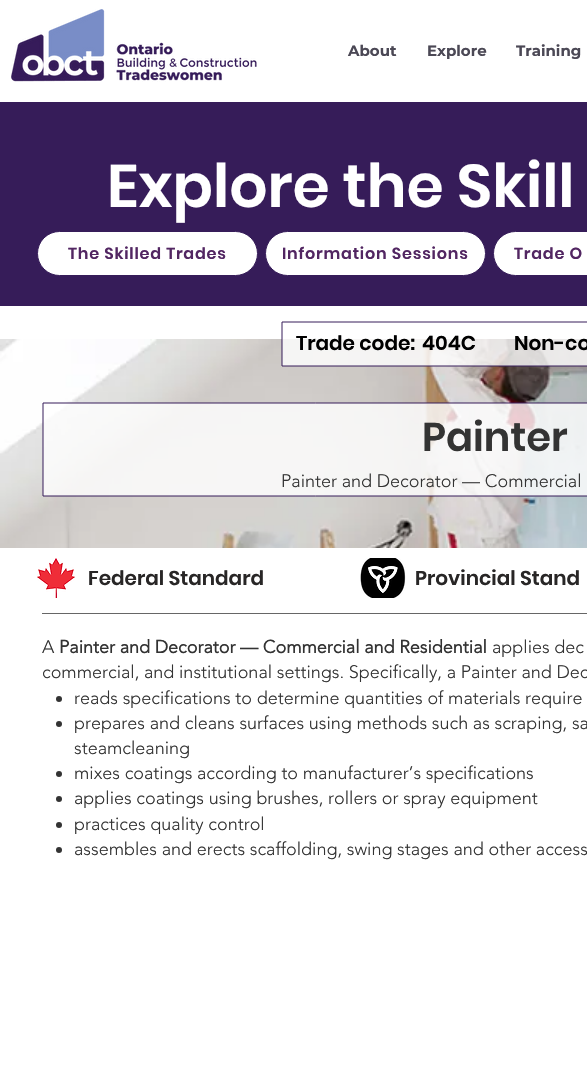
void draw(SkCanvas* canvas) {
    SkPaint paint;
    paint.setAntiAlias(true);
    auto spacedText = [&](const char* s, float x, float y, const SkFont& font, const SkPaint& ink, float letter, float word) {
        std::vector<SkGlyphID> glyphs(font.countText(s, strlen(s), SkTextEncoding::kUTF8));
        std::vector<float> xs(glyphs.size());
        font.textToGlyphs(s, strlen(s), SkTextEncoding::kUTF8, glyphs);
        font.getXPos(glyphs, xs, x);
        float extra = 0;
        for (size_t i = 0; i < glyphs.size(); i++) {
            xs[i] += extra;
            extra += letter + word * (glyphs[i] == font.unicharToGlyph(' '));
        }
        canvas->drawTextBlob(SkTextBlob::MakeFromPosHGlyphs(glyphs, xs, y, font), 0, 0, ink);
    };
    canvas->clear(0xFFFFFFFF);
    canvas->drawImageRect(SkImages::DeferredFromEncodedData(SkData::MakeFromFileName("img1.png")), SkRect::MakeXYWH(11, 9, 246, 73), SkSamplingOptions());
    SkFont font1(fontMgr->matchFamilyStyle("Montserrat", SkFontStyle::Bold()), 15);
    font1.setSubpixel(true);
    paint.setColor(0xFF4B4855);
    canvas->drawString("About", 348, 56, font1, paint);
    canvas->drawString("Explore", 427, 56, font1, paint);
    canvas->drawString("Training", 516, 56, font1, paint);
    paint.setColor(0xFF361C59);
    canvas->drawRect(SkRect::MakeXYWH(0, 102, 587, 204), paint);
    SkFont font2(fontMgr->matchFamilyStyle("Poppins", SkFontStyle(600, SkFontStyle::kNormal_Width, SkFontStyle::kUpright_Slant)), 60);
    font2.setSubpixel(true);
    paint.setColor(0xFFFFFFFF);
    canvas->drawString("Explore the Skill", 107, 207, font2, paint);
    canvas->drawRoundRect(SkRect::MakeXYWH(37.5f, 231.5f, 220, 44), 22, 22, paint);
    paint.setStyle(SkPaint::kStroke_Style);
    paint.setStrokeWidth(1);
    paint.setColor(0xFF361C59);
    canvas->drawRoundRect(SkRect::MakeXYWH(37.5f, 231.5f, 220, 44), 22, 22, paint);
    SkFont font3(fontMgr->matchFamilyStyle("Poppins", SkFontStyle(600, SkFontStyle::kNormal_Width, SkFontStyle::kUpright_Slant)), 16);
    font3.setSubpixel(true);
    paint.setStyle(SkPaint::kFill_Style);
    paint.setColor(0xFF522662);
    spacedText("The Skilled Trades", 68, 259, font3, paint, 0.8f, 0);
    paint.setColor(0xFFFFFFFF);
    canvas->drawRoundRect(SkRect::MakeXYWH(265.5f, 231.5f, 220, 44), 22, 22, paint);
    paint.setStyle(SkPaint::kStroke_Style);
    paint.setColor(0xFF361C59);
    canvas->drawRoundRect(SkRect::MakeXYWH(265.5f, 231.5f, 220, 44), 22, 22, paint);
    paint.setStyle(SkPaint::kFill_Style);
    paint.setColor(0xFF522662);
    spacedText("Information Sessions", 282, 259, font3, paint, 0.8f, 0);
    paint.setColor(0xFFFFFFFF);
    canvas->drawRoundRect(SkRect::MakeXYWH(493.5f, 231.5f, 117, 44), 22, 22, paint);
    paint.setStyle(SkPaint::kStroke_Style);
    paint.setColor(0xFF361C59);
    canvas->drawRoundRect(SkRect::MakeXYWH(493.5f, 231.5f, 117, 44), 22, 22, paint);
    paint.setStyle(SkPaint::kFill_Style);
    paint.setColor(0xFF522662);
    spacedText("Trade O", 514, 259, font3, paint, 0.8f, 0);
    canvas->drawImageRect(SkImages::DeferredFromEncodedData(SkData::MakeFromFileName("img2.png")), SkRect::MakeXYWH(0, 339, 587, 209), SkSamplingOptions());
    paint.setColor(0xCCFFFFFF);
    canvas->drawRect(SkRect::MakeXYWH(282, 339, 305, 27), paint);
    paint.setStyle(SkPaint::kStroke_Style);
    paint.setColor(0xFF361C59);
    canvas->drawPath(SkPathBuilder().moveTo(282, 366).lineTo(282, 322).lineTo(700, 322).lineTo(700, 366).close().detach(), paint);
    SkFont font4(fontMgr->matchFamilyStyle("Poppins", SkFontStyle(600, SkFontStyle::kNormal_Width, SkFontStyle::kUpright_Slant)), 20);
    font4.setSubpixel(true);
    paint.setStyle(SkPaint::kFill_Style);
    paint.setColor(0xFF000000);
    canvas->drawString("Trade code:", 296, 350, font4, paint);
    canvas->drawString("404C", 422, 350, font4, paint);
    canvas->drawString("Non-co", 514, 350, font4, paint);
    paint.setColor(0xCCFFFFFF);
    canvas->drawRect(SkRect::MakeXYWH(43, 403, 544, 93), paint);
    paint.setStyle(SkPaint::kStroke_Style);
    paint.setColor(0xFF361C59);
    canvas->drawPath(SkPathBuilder().moveTo(43, 496).lineTo(43, 403).lineTo(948, 403).lineTo(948, 496).close().detach(), paint);
    SkFont font5(fontMgr->matchFamilyStyle("Poppins", SkFontStyle(600, SkFontStyle::kNormal_Width, SkFontStyle::kUpright_Slant)), 40);
    font5.setSubpixel(true);
    paint.setStyle(SkPaint::kFill_Style);
    paint.setColor(0xFF333333);
    canvas->drawString("Painter", 422, 451, font5, paint);
    SkFont font6(fontMgr->matchFamilyStyle("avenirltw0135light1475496", SkFontStyle(300, SkFontStyle::kNormal_Width, SkFontStyle::kUpright_Slant)), 18);
    font6.setSubpixel(true);
    canvas->drawString("Painter and Decorator — Commercial", 281, 487, font6, paint);
    canvas->drawImageRect(SkImages::DeferredFromEncodedData(SkData::MakeFromFileName("img3.png")), SkRect::MakeXYWH(37, 558, 38, 40), SkSamplingOptions());
    paint.setColor(0xFF282626);
    canvas->drawString("Federal Standard", 88, 585, font4, paint);
    canvas->drawImageRect(SkImages::DeferredFromEncodedData(SkData::MakeFromFileName("img4.png")), SkRect::MakeXYWH(360, 558, 46, 40), SkSamplingOptions());
    canvas->drawString("Provincial Stand", 415, 585, font4, paint);
    paint.setColor(0xFF666666);
    canvas->drawRect(SkRect::MakeXYWH(42, 613, 545, 1), paint);
    paint.setColor(0xFF333333);
    canvas->drawString("A", 42, 653, font6, paint);
    SkFont font7(fontMgr->matchFamilyStyle("avenirltw0135light1475496", SkFontStyle::Bold()), 18);
    font7.setSubpixel(true);
    canvas->drawString("Painter and Decorator — Commercial and Residential", 59, 653, font7, paint);
    canvas->drawString("applies dec", 492, 653, font6, paint);
    canvas->drawString("commercial, and institutional settings. Specifically, a Painter and Dec", 42, 678, font6, paint);
    canvas->drawCircle(59, 699, 3, paint);
    canvas->drawString("reads specifications to determine quantities of materials require", 74, 704, font6, paint);
    canvas->drawCircle(59, 724, 3, paint);
    canvas->drawString("prepares and cleans surfaces using methods such as scraping, sa", 74, 729, font6, paint);
    canvas->drawString("steamcleaning", 74, 754, font6, paint);
    canvas->drawCircle(59, 774, 3, paint);
    canvas->drawString("mixes coatings according to manufacturer’s specifications", 74, 779, font6, paint);
    canvas->drawCircle(59, 799, 3, paint);
    canvas->drawString("applies coatings using brushes, rollers or spray equipment", 74, 804, font6, paint);
    canvas->drawCircle(59, 825, 3, paint);
    canvas->drawString("practices quality control", 74, 830, font6, paint);
    canvas->drawCircle(59, 850, 3, paint);
    canvas->drawString("assembles and erects scaffolding, swing stages and other access", 74, 855, font6, paint);
}
